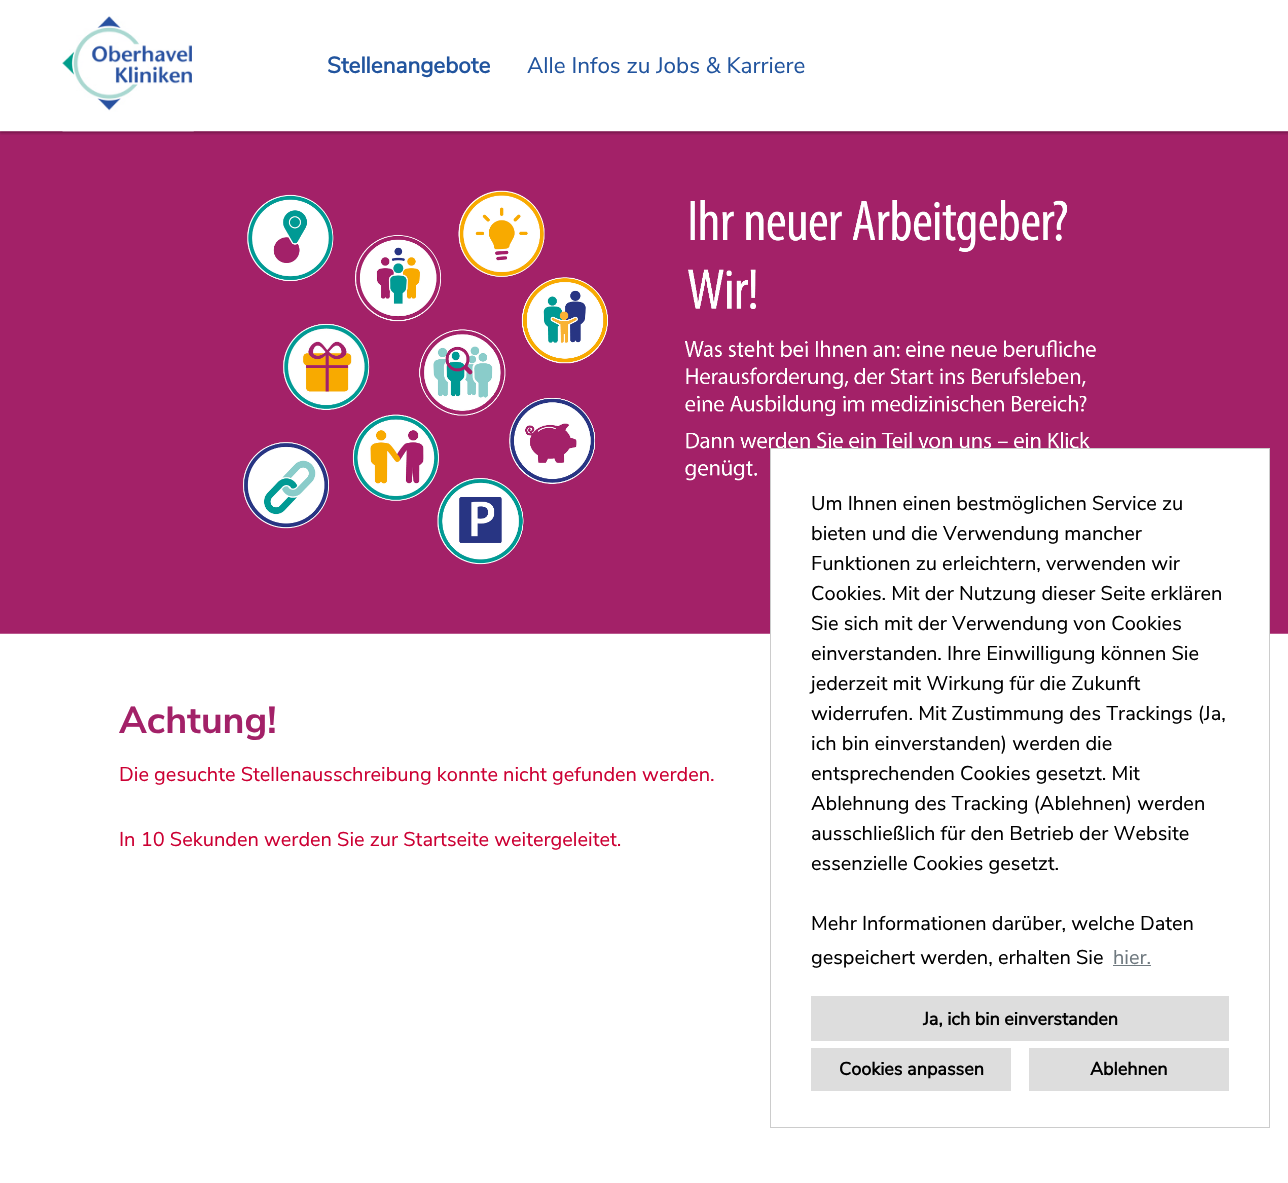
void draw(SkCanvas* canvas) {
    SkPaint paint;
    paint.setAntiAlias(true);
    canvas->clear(0xFFFFFFFF);
    canvas->drawImageRect(SkImages::DeferredFromEncodedData(SkData::MakeFromFileName("img2.png")), SkRect::MakeXYWH(0, 131, 1288, 503), SkSamplingOptions());
    paint.setStyle(SkPaint::kStroke_Style);
    paint.setStrokeWidth(1);
    paint.setColor(0xFF961E60);
    canvas->drawRect(SkRect::MakeXYWH(-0.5f, -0.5f, 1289, 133), paint);
    canvas->save();
    canvas->clipRect(SkRect::MakeXYWH(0, 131, 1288, 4));
    paint.setStyle(SkPaint::kFill_Style);
    paint.setColor(0x29000000);
    paint.setMaskFilter(SkMaskFilter::MakeBlur(kNormal_SkBlurStyle, 1));
    canvas->drawRect(SkRect::MakeXYWH(0, 3, 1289, 131), paint);
    paint.setMaskFilter(nullptr);
    canvas->restore();
    canvas->drawImageRect(SkImages::DeferredFromEncodedData(SkData::MakeFromFileName("img1.png")), SkRect::MakeXYWH(62, 16, 132, 116), SkSamplingOptions());
    SkFont font1(fontMgr->matchFamilyStyle("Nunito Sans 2", SkFontStyle::Bold()), 22.5f);
    font1.setSubpixel(true);
    paint.setColor(0xFF21549E);
    canvas->drawString("Stellenangebote", 327, 73, font1, paint);
    SkFont font2(fontMgr->matchFamilyStyle("Nunito Sans", SkFontStyle::Normal()), 22.5f);
    font2.setSubpixel(true);
    canvas->drawString("Alle Infos zu Jobs & Karriere", 527, 73, font2, paint);
    SkFont font3(fontMgr->matchFamilyStyle("Nunito Sans", SkFontStyle::Bold()), 37.5f);
    font3.setSubpixel(true);
    paint.setColor(0xFFA32168);
    canvas->drawString("Achtung!", 119, 733, font3, paint);
    SkFont font4(fontMgr->matchFamilyStyle("Nunito Sans", SkFontStyle::Normal()), 20);
    font4.setSubpixel(true);
    paint.setColor(0xFFCC0033);
    canvas->drawString("Die gesuchte Stellenausschreibung konnte nicht gefunden werden.", 119, 781, font4, paint);
    canvas->drawString("In 10 Sekunden werden Sie zur Startseite weitergeleitet.", 119, 846, font4, paint);
    paint.setColor(0xFFFFFFFF);
    canvas->drawRect(SkRect::MakeXYWH(771, 449, 498, 185), paint);
    paint.setStyle(SkPaint::kStroke_Style);
    paint.setColor(0xFFCCCCCC);
    canvas->drawRect(SkRect::MakeXYWH(770.5f, 448.5f, 499, 679), paint);
    paint.setStyle(SkPaint::kFill_Style);
    paint.setColor(0xFF000000);
    canvas->drawString("Um Ihnen einen bestmöglichen Service zu", 811, 510, font4, paint);
    canvas->drawString("bieten und die Verwendung mancher", 811, 540, font4, paint);
    canvas->drawString("Funktionen zu erleichtern, verwenden wir", 811, 570, font4, paint);
    canvas->drawString("Cookies. Mit der Nutzung dieser Seite erklären", 811, 600, font4, paint);
    canvas->drawString("Sie sich mit der Verwendung von Cookies", 811, 630, font4, paint);
    canvas->drawString("einverstanden. Ihre Einwilligung können Sie", 811, 660, font4, paint);
    canvas->drawString("jederzeit mit Wirkung für die Zukunft", 811, 690, font4, paint);
    canvas->drawString("widerrufen. Mit Zustimmung des Trackings (Ja,", 811, 720, font4, paint);
    canvas->drawString("ich bin einverstanden) werden die", 811, 750, font4, paint);
    canvas->drawString("entsprechenden Cookies gesetzt. Mit", 811, 780, font4, paint);
    canvas->drawString("Ablehnung des Tracking (Ablehnen) werden", 811, 810, font4, paint);
    canvas->drawString("ausschließlich für den Betrieb der Website", 811, 840, font4, paint);
    canvas->drawString("essenzielle Cookies gesetzt.", 811, 870, font4, paint);
    canvas->drawString("Mehr Informationen darüber, welche Daten", 811, 930, font4, paint);
    canvas->drawString("gespeichert werden, erhalten Sie", 811, 964, font4, paint);
    paint.setColor(0xFF6F797F);
    canvas->drawString("hier.", 1113, 964, font4, paint);
    canvas->drawRect(SkRect::MakeXYWH(1113, 965, 38, 1), paint);
    paint.setColor(0xFFDDDDDD);
    canvas->drawRect(SkRect::MakeXYWH(811, 996, 418, 45), paint);
    SkFont font5(fontMgr->matchFamilyStyle("Nunito Sans 2", SkFontStyle::Bold()), 18);
    font5.setSubpixel(true);
    paint.setColor(0xFF000000);
    canvas->drawString("Ja, ich bin einverstanden", 923, 1025, font5, paint);
    paint.setColor(0xFFDDDDDD);
    canvas->drawRect(SkRect::MakeXYWH(811, 1048, 200, 43), paint);
    paint.setColor(0xFF000000);
    canvas->drawString("Cookies anpassen", 839, 1075, font5, paint);
    paint.setColor(0xFFDDDDDD);
    canvas->drawRect(SkRect::MakeXYWH(1029, 1048, 200, 43), paint);
    paint.setColor(0xFF000000);
    canvas->drawString("Ablehnen", 1090, 1075, font5, paint);
}
